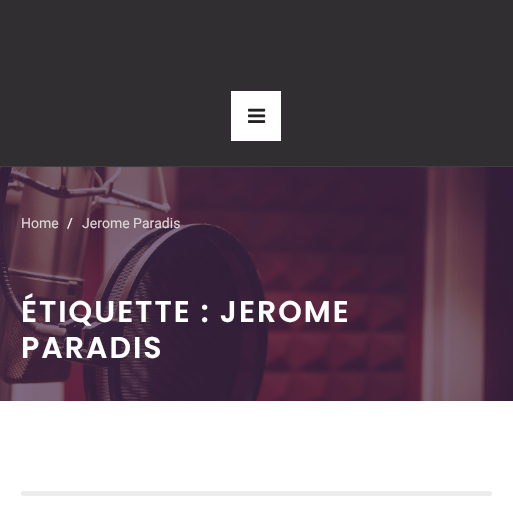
void draw(SkCanvas* canvas) {
    SkPaint paint;
    paint.setAntiAlias(true);
    auto spacedText = [&](const char* s, float x, float y, const SkFont& font, const SkPaint& ink, float letter, float word) {
        std::vector<SkGlyphID> glyphs(font.countText(s, strlen(s), SkTextEncoding::kUTF8));
        std::vector<float> xs(glyphs.size());
        font.textToGlyphs(s, strlen(s), SkTextEncoding::kUTF8, glyphs);
        font.getXPos(glyphs, xs, x);
        float extra = 0;
        for (size_t i = 0; i < glyphs.size(); i++) {
            xs[i] += extra;
            extra += letter + word * (glyphs[i] == font.unicharToGlyph(' '));
        }
        canvas->drawTextBlob(SkTextBlob::MakeFromPosHGlyphs(glyphs, xs, y, font), 0, 0, ink);
    };
    canvas->clear(0xFFFFFFFF);
    paint.setColor(0xFF312E31);
    canvas->drawRect(SkRect::MakeXYWH(0, 0, 513, 166), paint);
    paint.setColor(0xFF413D41);
    canvas->drawRect(SkRect::MakeXYWH(0, 166, 513, 1), paint);
    paint.setColor(0xFFFFFFFF);
    canvas->drawRect(SkRect::MakeXYWH(231, 91, 50, 50), paint);
    canvas->drawImageRect(SkImages::DeferredFromEncodedData(SkData::MakeFromFileName("img1.png")), SkRect::MakeXYWH(248, 108, 18, 15), SkSamplingOptions());
    canvas->drawImageRect(SkImages::DeferredFromEncodedData(SkData::MakeFromFileName("img2.png")), SkRect::MakeXYWH(0, 167, 513, 234), SkSamplingOptions());
    SkFont font1(fontMgr->matchFamilyStyle("Roboto", SkFontStyle::Normal()), 14);
    font1.setSubpixel(true);
    paint.setColor(0xFFDED6D9);
    canvas->drawString("Home", 21, 228, font1, paint);
    paint.setColor(0xFFFFFFFF);
    canvas->drawString("/", 67, 228, font1, paint);
    paint.setColor(0xFFDED6D9);
    canvas->drawString("Jerome Paradis", 82, 228, font1, paint);
    SkFont font2(fontMgr->matchFamilyStyle("Poppins", SkFontStyle(600, SkFontStyle::kNormal_Width, SkFontStyle::kUpright_Slant)), 30);
    font2.setSubpixel(true);
    paint.setColor(0xFFFFFFFF);
    spacedText("ÉTIQUETTE : JEROME", 21, 322, font2, paint, 2, 0);
    spacedText("PARADIS", 21, 358, font2, paint, 2, 0);
    paint.setColor(0xFFEDECED);
    canvas->drawRoundRect(SkRect::MakeXYWH(21, 491, 471, 5), 2.5f, 2.5f, paint);
}
